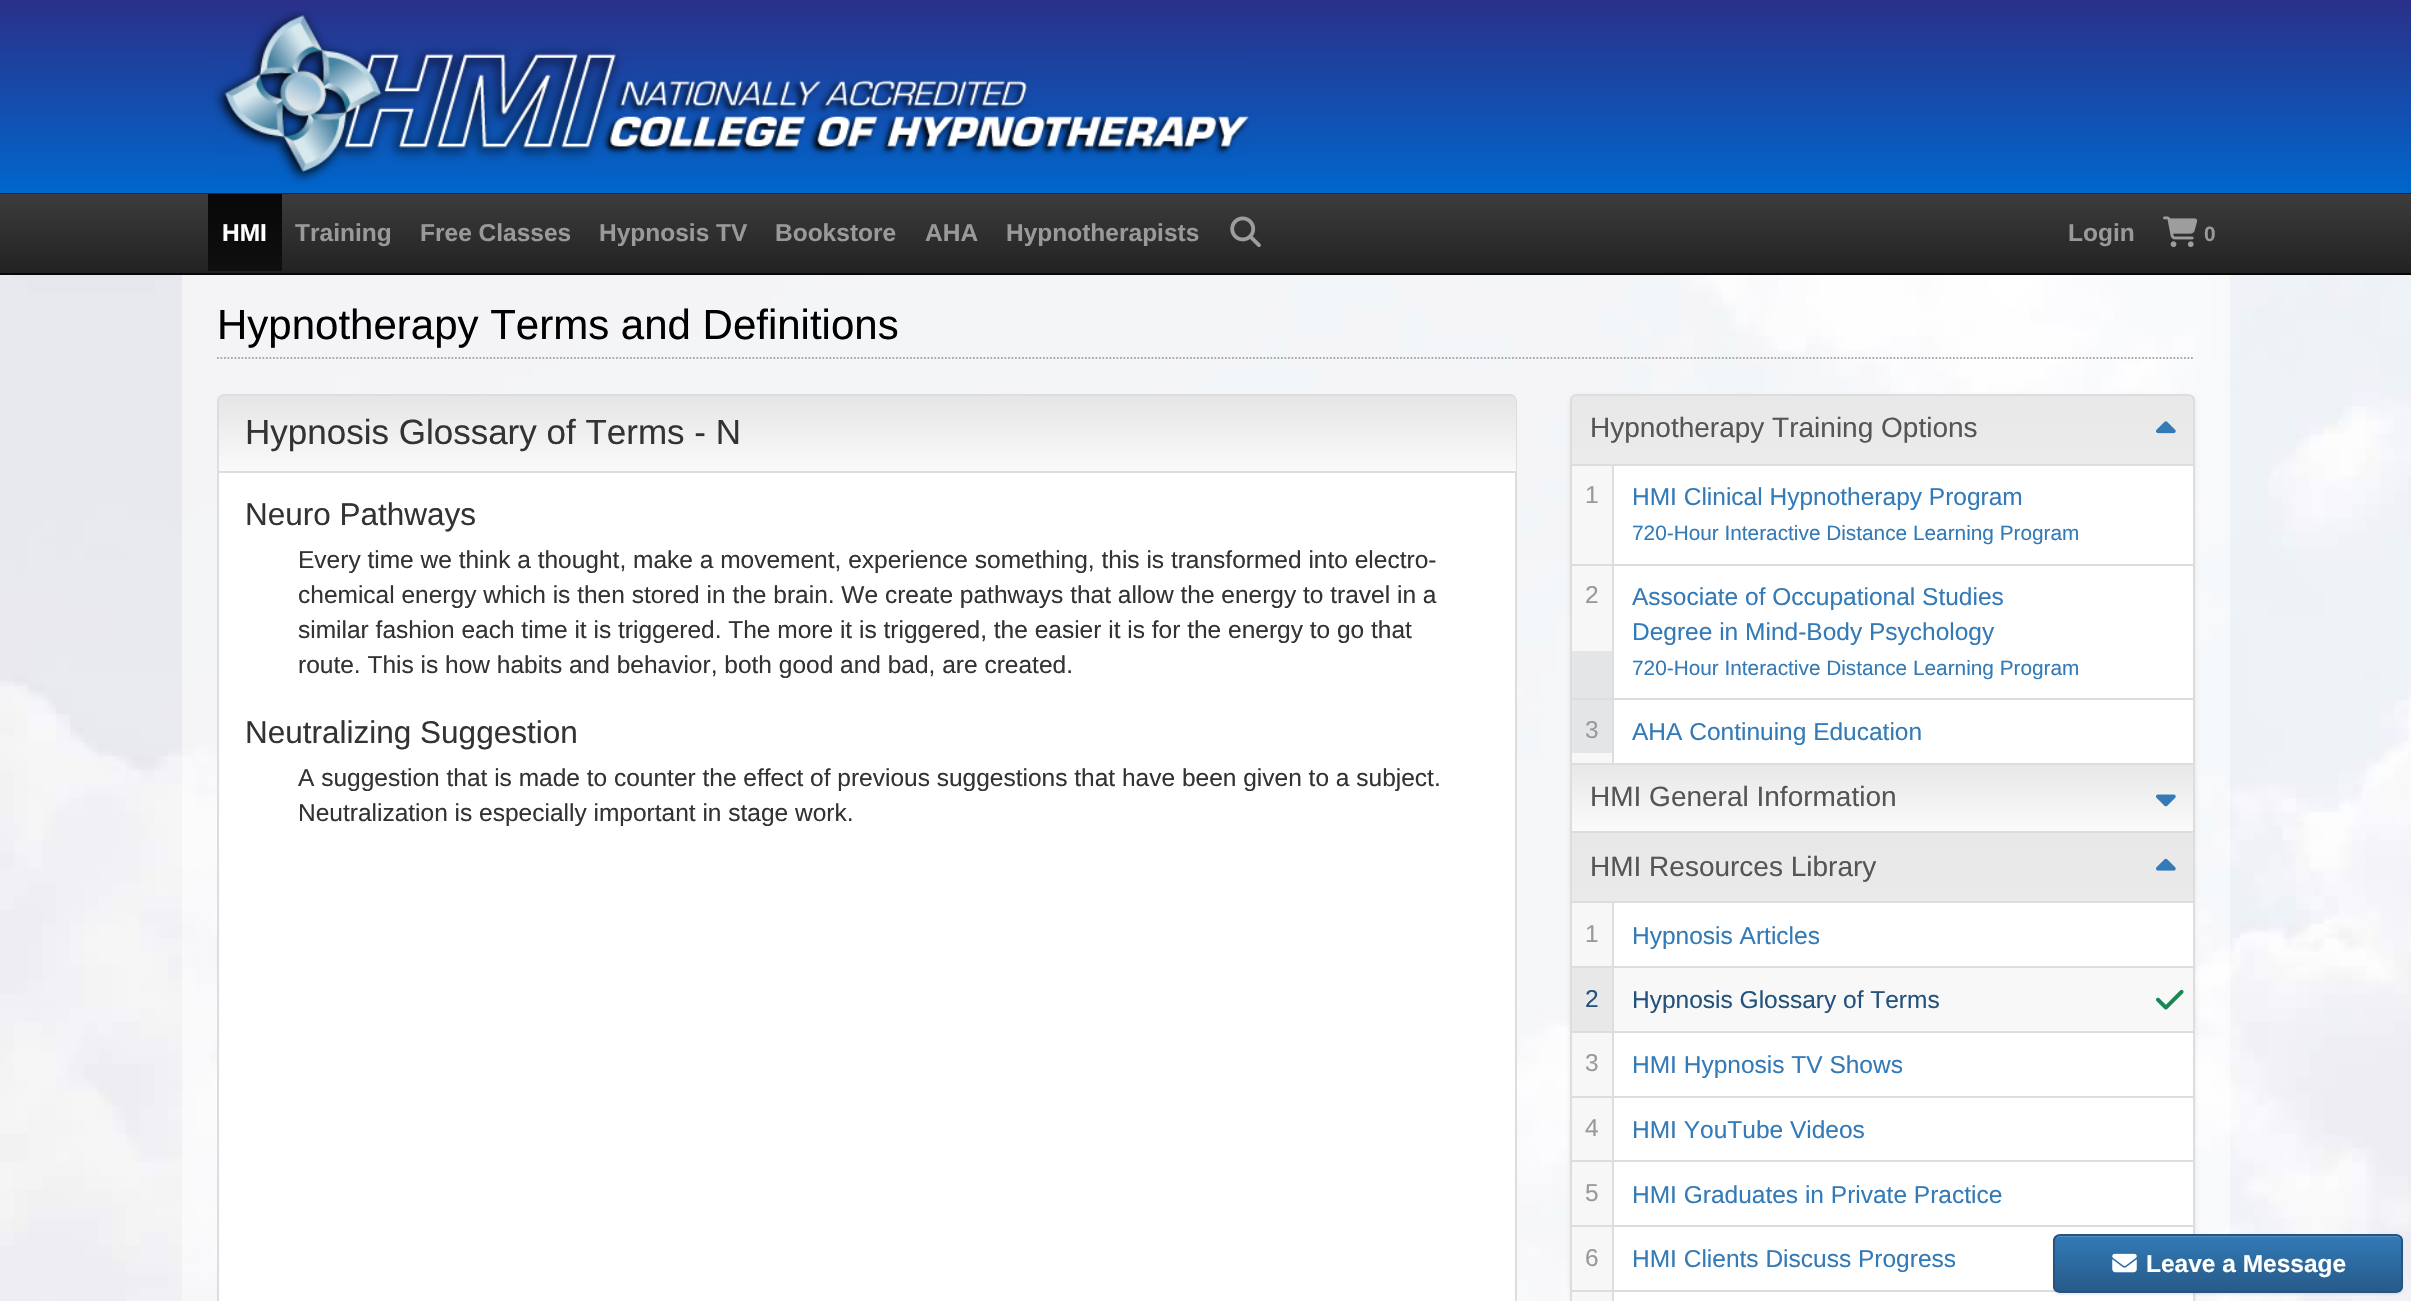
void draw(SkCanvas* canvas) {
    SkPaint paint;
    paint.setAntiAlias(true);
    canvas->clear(0xFFFFFFFF);
    canvas->drawImageRect(SkImages::DeferredFromEncodedData(SkData::MakeFromFileName("img1.png")), SkRect::MakeXYWH(0, 275, 2411, 1026), SkSamplingOptions());
    {
        const SkColor colors[] = {0xFF2A3089, 0xFF0066CC};
        const float stops[] = {0, 1};
        const SkPoint ends[] = {{1206, 0}, {1206, 193}};
        paint.setShader(SkGradientShader::MakeLinear(ends, colors, stops, 2, SkTileMode::kClamp));
        paint.setAlpha(255);
    }
    canvas->drawRect(SkRect::MakeXYWH(0, 0, 2411, 193), paint);
    paint.setShader(nullptr);
    paint.setColor(0xFF222222);
    canvas->drawRect(SkRect::MakeXYWH(0, 193, 2411, 1), paint);
    canvas->drawImageRect(SkImages::DeferredFromEncodedData(SkData::MakeFromFileName("img2.png")), SkRect::MakeXYWH(213, 10, 1037, 174), SkSamplingOptions());
    {
        const SkColor colors[] = {0xFF3C3C3C, 0xFF222222};
        const float stops[] = {0, 1};
        const SkPoint ends[] = {{1206, 194}, {1206, 273}};
        paint.setShader(SkGradientShader::MakeLinear(ends, colors, stops, 2, SkTileMode::kClamp));
        paint.setAlpha(255);
    }
    canvas->drawRect(SkRect::MakeXYWH(0, 194, 2411, 79), paint);
    paint.setShader(nullptr);
    paint.setColor(0xFF080808);
    canvas->drawRect(SkRect::MakeXYWH(0, 273, 2411, 2), paint);
    {
        const SkColor colors[] = {0xFF080808, 0xFF0F0F0F};
        const float stops[] = {0, 1};
        const SkPoint ends[] = {{245, 194}, {245, 271}};
        paint.setShader(SkGradientShader::MakeLinear(ends, colors, stops, 2, SkTileMode::kClamp));
        paint.setAlpha(255);
    }
    canvas->drawRect(SkRect::MakeXYWH(208, 194, 74, 77), paint);
    SkFont font1(fontMgr->matchFamilyStyle("Liberation Sans", SkFontStyle::Bold()), 24.5f);
    font1.setSubpixel(true);
    paint.setShader(nullptr);
    paint.setColor(0xFFFFFFFF);
    canvas->drawString("HMI", 222, 241, font1, paint);
    paint.setColor(0xFF999999);
    canvas->drawString("Training", 295, 241, font1, paint);
    canvas->drawString("Free Classes", 420, 241, font1, paint);
    canvas->drawString("Hypnosis TV", 599, 241, font1, paint);
    canvas->drawString("Bookstore", 775, 241, font1, paint);
    canvas->drawString("AHA", 925, 241, font1, paint);
    canvas->drawString("Hypnotherapists", 1006, 241, font1, paint);
    canvas->drawImageRect(SkImages::DeferredFromEncodedData(SkData::MakeFromFileName("img3.png")), SkRect::MakeXYWH(1230, 216, 31, 31), SkSamplingOptions());
    canvas->drawString("Login", 2068, 241, font1, paint);
    canvas->drawImageRect(SkImages::DeferredFromEncodedData(SkData::MakeFromFileName("img4.png")), SkRect::MakeXYWH(2163, 216, 35, 32), SkSamplingOptions());
    SkFont font2(fontMgr->matchFamilyStyle("Liberation Sans", SkFontStyle::Bold()), 20.8f);
    font2.setSubpixel(true);
    canvas->drawString("0", 2204, 241, font2, paint);
    paint.setColor(0x80FFFFFF);
    canvas->drawRect(SkRect::MakeXYWH(182, 275, 2048, 1026), paint);
    paint.setStyle(SkPaint::kStroke_Style);
    paint.setStrokeWidth(1.8f);
    paint.setColor(0xFFAAAAAA);
    paint.setPathEffect(SkDashPathEffect::Make({{1.75f, 1.75f}}, 0));
    canvas->drawPath(SkPathBuilder().moveTo(217, 358).lineTo(2194.5f, 358).detach(), paint);
    paint.setPathEffect(nullptr);
    SkFont font3(fontMgr->matchFamilyStyle("Liberation Sans", SkFontStyle::Normal()), 42);
    font3.setSubpixel(true);
    paint.setStyle(SkPaint::kFill_Style);
    paint.setColor(0xFF000000);
    canvas->drawString("Hypnotherapy Terms and Definitions", 217, 339, font3, paint);
    paint.setColor(0xFFFFFFFF);
    canvas->drawRoundRect(SkRect::MakeXYWH(218, 395, 1298, 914), 6, 6, paint);
    paint.setStyle(SkPaint::kStroke_Style);
    paint.setStrokeWidth(2);
    paint.setColor(0xFFDDDDDD);
    canvas->drawRoundRect(SkRect::MakeXYWH(218, 395, 1298, 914), 6, 6, paint);
    paint.setStyle(SkPaint::kFill_Style);
    {
        const SkColor colors[] = {0xFFE5E5E5, 0xFFFAFAFA};
        const float stops[] = {0, 1};
        const SkPoint ends[] = {{867, 395}, {867, 471}};
        paint.setShader(SkGradientShader::MakeLinear(ends, colors, stops, 2, SkTileMode::kClamp));
        paint.setAlpha(255);
    }
    canvas->drawPath(SkPathBuilder().moveTo(224, 396).lineTo(1511, 396).cubicTo(1514, 396, 1516, 398, 1516, 401).lineTo(1516, 471).lineTo(219, 471).lineTo(219, 401).cubicTo(219, 398, 221, 396, 224, 396).close().detach(), paint);
    paint.setShader(nullptr);
    paint.setColor(0xFFDDDDDD);
    canvas->drawRect(SkRect::MakeXYWH(219, 471, 1297, 2), paint);
    SkFont font4(fontMgr->matchFamilyStyle("Liberation Sans", SkFontStyle::Normal()), 35);
    font4.setSubpixel(true);
    paint.setColor(0xFF333333);
    canvas->drawString("Hypnosis Glossary of Terms - N", 245, 444, font4, paint);
    SkFont font5(fontMgr->matchFamilyStyle("Liberation Sans", SkFontStyle::Normal()), 31.5f);
    font5.setSubpixel(true);
    canvas->drawString("Neuro Pathways", 245, 525, font5, paint);
    SkFont font6(fontMgr->matchFamilyStyle("Liberation Sans", SkFontStyle::Normal()), 24.5f);
    font6.setSubpixel(true);
    canvas->drawString("Every time we think a thought, make a movement, experience something, this is transformed into electro-", 298, 568, font6, paint);
    canvas->drawString("chemical energy which is then stored in the brain. We create pathways that allow the energy to travel in a", 298, 603, font6, paint);
    canvas->drawString("similar fashion each time it is triggered. The more it is triggered, the easier it is for the energy to go that", 298, 638, font6, paint);
    canvas->drawString("route. This is how habits and behavior, both good and bad, are created.", 298, 673, font6, paint);
    canvas->drawString("Neutralizing Suggestion", 245, 743, font5, paint);
    canvas->drawString("A suggestion that is made to counter the effect of previous suggestions that have been given to a subject.", 298, 786, font6, paint);
    canvas->drawString("Neutralization is especially important in stage work.", 298, 821, font6, paint);
    paint.setColor(0x12000000);
    paint.setMaskFilter(SkMaskFilter::MakeBlur(kNormal_SkBlurStyle, 2));
    canvas->drawRoundRect(SkRect::MakeXYWH(1570, 396, 625, 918), 7, 7, paint);
    paint.setMaskFilter(nullptr);
    canvas->save();
    canvas->clipPath(SkPathBuilder().moveTo(1577, 394).lineTo(2188, 394).cubicTo(2192, 394, 2195, 397, 2195, 401).lineTo(2195, 765).lineTo(1570, 765).lineTo(1570, 401).cubicTo(1570, 397, 1573, 394, 1577, 394).close().detach(), true);
    {
        const SkColor colors[] = {0xFFE8E8E8, 0xFFFAFAFA};
        const float stops[] = {0, 1};
        const SkPoint ends[] = {{1882, 395}, {1882, 763}};
        paint.setShader(SkGradientShader::MakeLinear(ends, colors, stops, 2, SkTileMode::kClamp));
        paint.setAlpha(255);
    }
    canvas->drawRect(SkRect::MakeXYWH(1570, 396, 625, 68), paint);
    canvas->restore();
    paint.setStyle(SkPaint::kStroke_Style);
    paint.setShader(nullptr);
    paint.setColor(0xFFDDDDDD);
    canvas->drawPath(SkPathBuilder().moveTo(1577, 395).lineTo(2188, 395).cubicTo(2191.5f, 395, 2194, 397.5f, 2194, 401).lineTo(2194, 764).lineTo(1571, 764).lineTo(1571, 401).cubicTo(1571, 397.5f, 1573.5f, 395, 1577, 395).close().detach(), paint);
    SkFont font7(fontMgr->matchFamilyStyle("Liberation Sans", SkFontStyle::Normal()), 28);
    font7.setSubpixel(true);
    paint.setStyle(SkPaint::kFill_Style);
    paint.setColor(0xFF555555);
    canvas->drawString("Hypnotherapy Training Options", 1590, 437, font7, paint);
    canvas->drawImageRect(SkImages::DeferredFromEncodedData(SkData::MakeFromFileName("img5.png")), SkRect::MakeXYWH(2156, 421, 20, 13), SkSamplingOptions());
    paint.setColor(0xFFF7F7F7);
    canvas->drawRect(SkRect::MakeXYWH(1572, 466, 40, 98), paint);
    paint.setColor(0xFFDDDDDD);
    canvas->drawRect(SkRect::MakeXYWH(1572, 464, 621, 2), paint);
    canvas->drawRect(SkRect::MakeXYWH(1612, 464, 2, 100), paint);
    paint.setColor(0xFF999999);
    canvas->drawString("1", 1585, 503, font6, paint);
    paint.setColor(0xFFFFFFFF);
    canvas->drawRect(SkRect::MakeXYWH(1614, 466, 579, 98), paint);
    paint.setColor(0xFF337AB7);
    canvas->drawString("HMI Clinical Hypnotherapy Program", 1632, 505, font6, paint);
    SkFont font8(fontMgr->matchFamilyStyle("Liberation Sans", SkFontStyle::Normal()), 20.8f);
    font8.setSubpixel(true);
    canvas->drawString("720-Hour Interactive Distance Learning Program", 1632, 540, font8, paint);
    paint.setColor(0xFFF7F7F7);
    canvas->drawRect(SkRect::MakeXYWH(1572, 566, 40, 85), paint);
    paint.setColor(0xFFDDDDDD);
    canvas->drawRect(SkRect::MakeXYWH(1572, 564, 621, 2), paint);
    canvas->drawRect(SkRect::MakeXYWH(1612, 564, 2, 134), paint);
    paint.setColor(0xFF999999);
    canvas->drawString("2", 1585, 603, font6, paint);
    paint.setColor(0xFFFFFFFF);
    canvas->drawRect(SkRect::MakeXYWH(1614, 566, 579, 132), paint);
    paint.setColor(0xFF337AB7);
    canvas->drawString("Associate of Occupational Studies", 1632, 605, font6, paint);
    canvas->drawString("Degree in Mind-Body Psychology", 1632, 640, font6, paint);
    canvas->drawString("720-Hour Interactive Distance Learning Program", 1632, 675, font8, paint);
    paint.setColor(0xFFF7F7F7);
    canvas->drawRect(SkRect::MakeXYWH(1572, 753, 40, 10), paint);
    paint.setColor(0xFFDDDDDD);
    canvas->drawRect(SkRect::MakeXYWH(1572, 698, 621, 2), paint);
    canvas->drawRect(SkRect::MakeXYWH(1612, 698, 2, 65), paint);
    paint.setColor(0xFF999999);
    canvas->drawString("3", 1585, 738, font6, paint);
    paint.setColor(0xFFFFFFFF);
    canvas->drawRect(SkRect::MakeXYWH(1614, 700, 579, 63), paint);
    paint.setColor(0xFF337AB7);
    canvas->drawString("AHA Continuing Education", 1632, 740, font6, paint);
    {
        const SkColor colors[] = {0xFFE8E8E8, 0xFFFAFAFA};
        const float stops[] = {0, 1};
        const SkPoint ends[] = {{1882, 765}, {1882, 831}};
        paint.setShader(SkGradientShader::MakeLinear(ends, colors, stops, 2, SkTileMode::kClamp));
        paint.setAlpha(255);
    }
    canvas->drawRect(SkRect::MakeXYWH(1572, 765, 621, 66), paint);
    paint.setStyle(SkPaint::kStroke_Style);
    paint.setShader(nullptr);
    paint.setColor(0xFFDDDDDD);
    canvas->drawRect(SkRect::MakeXYWH(1571, 764, 623, 68), paint);
    paint.setStyle(SkPaint::kFill_Style);
    paint.setColor(0xFF555555);
    canvas->drawString("HMI General Information", 1590, 806, font7, paint);
    canvas->drawImageRect(SkImages::DeferredFromEncodedData(SkData::MakeFromFileName("img6.png")), SkRect::MakeXYWH(2156, 794, 20, 13), SkSamplingOptions());
    {
        const SkColor colors[] = {0xFFE8E8E8, 0xFFFAFAFA};
        const float stops[] = {0, 1};
        const SkPoint ends[] = {{1882, 833}, {1882, 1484}};
        paint.setShader(SkGradientShader::MakeLinear(ends, colors, stops, 2, SkTileMode::kClamp));
        paint.setAlpha(255);
    }
    canvas->drawRect(SkRect::MakeXYWH(1572, 833, 621, 68), paint);
    paint.setStyle(SkPaint::kStroke_Style);
    paint.setShader(nullptr);
    paint.setColor(0xFFDDDDDD);
    canvas->drawRect(SkRect::MakeXYWH(1571, 832, 623, 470), paint);
    paint.setStyle(SkPaint::kFill_Style);
    paint.setColor(0xFF555555);
    canvas->drawString("HMI Resources Library", 1590, 876, font7, paint);
    canvas->drawImageRect(SkImages::DeferredFromEncodedData(SkData::MakeFromFileName("img7.png")), SkRect::MakeXYWH(2156, 858, 20, 13), SkSamplingOptions());
    paint.setColor(0xFFF7F7F7);
    canvas->drawRect(SkRect::MakeXYWH(1572, 903, 40, 63), paint);
    paint.setColor(0xFFDDDDDD);
    canvas->drawRect(SkRect::MakeXYWH(1572, 901, 621, 2), paint);
    canvas->drawRect(SkRect::MakeXYWH(1612, 901, 2, 65), paint);
    paint.setColor(0xFF999999);
    canvas->drawString("1", 1585, 942, font6, paint);
    paint.setColor(0xFFFFFFFF);
    canvas->drawRect(SkRect::MakeXYWH(1614, 903, 579, 63), paint);
    paint.setColor(0xFF337AB7);
    canvas->drawString("Hypnosis Articles", 1632, 944, font6, paint);
    paint.setColor(0xFFE8E8E8);
    canvas->drawRect(SkRect::MakeXYWH(1572, 968, 40, 63), paint);
    paint.setColor(0xFFDDDDDD);
    canvas->drawRect(SkRect::MakeXYWH(1572, 966, 621, 2), paint);
    canvas->drawRect(SkRect::MakeXYWH(1612, 966, 2, 65), paint);
    paint.setColor(0xFF23527C);
    canvas->drawString("2", 1585, 1007, font6, paint);
    paint.setColor(0xFFF8F8F8);
    canvas->drawRect(SkRect::MakeXYWH(1614, 968, 579, 63), paint);
    paint.setColor(0xFF23527C);
    canvas->drawString("Hypnosis Glossary of Terms", 1632, 1008, font6, paint);
    canvas->drawImageRect(SkImages::DeferredFromEncodedData(SkData::MakeFromFileName("img8.png")), SkRect::MakeXYWH(2156, 989, 28, 21), SkSamplingOptions());
    paint.setColor(0xFFF7F7F7);
    canvas->drawRect(SkRect::MakeXYWH(1572, 1033, 40, 63), paint);
    paint.setColor(0xFFDDDDDD);
    canvas->drawRect(SkRect::MakeXYWH(1572, 1031, 621, 2), paint);
    canvas->drawRect(SkRect::MakeXYWH(1612, 1031, 2, 65), paint);
    paint.setColor(0xFF999999);
    canvas->drawString("3", 1585, 1071, font6, paint);
    paint.setColor(0xFFFFFFFF);
    canvas->drawRect(SkRect::MakeXYWH(1614, 1033, 579, 63), paint);
    paint.setColor(0xFF337AB7);
    canvas->drawString("HMI Hypnosis TV Shows", 1632, 1073, font6, paint);
    paint.setColor(0xFFF7F7F7);
    canvas->drawRect(SkRect::MakeXYWH(1572, 1098, 40, 62), paint);
    paint.setColor(0xFFDDDDDD);
    canvas->drawRect(SkRect::MakeXYWH(1572, 1096, 621, 2), paint);
    canvas->drawRect(SkRect::MakeXYWH(1612, 1096, 2, 64), paint);
    paint.setColor(0xFF999999);
    canvas->drawString("4", 1585, 1136, font6, paint);
    paint.setColor(0xFFFFFFFF);
    canvas->drawRect(SkRect::MakeXYWH(1614, 1098, 579, 62), paint);
    paint.setColor(0xFF337AB7);
    canvas->drawString("HMI YouTube Videos", 1632, 1138, font6, paint);
    paint.setColor(0xFFF7F7F7);
    canvas->drawRect(SkRect::MakeXYWH(1572, 1162, 40, 63), paint);
    paint.setColor(0xFFDDDDDD);
    canvas->drawRect(SkRect::MakeXYWH(1572, 1160, 621, 2), paint);
    canvas->drawRect(SkRect::MakeXYWH(1612, 1160, 2, 65), paint);
    paint.setColor(0xFF999999);
    canvas->drawString("5", 1585, 1201, font6, paint);
    paint.setColor(0xFFFFFFFF);
    canvas->drawRect(SkRect::MakeXYWH(1614, 1162, 579, 63), paint);
    paint.setColor(0xFF337AB7);
    canvas->drawString("HMI Graduates in Private Practice", 1632, 1203, font6, paint);
    paint.setColor(0xFFF7F7F7);
    canvas->drawRect(SkRect::MakeXYWH(1572, 1227, 40, 63), paint);
    paint.setColor(0xFFDDDDDD);
    canvas->drawRect(SkRect::MakeXYWH(1572, 1225, 621, 2), paint);
    canvas->drawRect(SkRect::MakeXYWH(1612, 1225, 2, 65), paint);
    paint.setColor(0xFF999999);
    canvas->drawString("6", 1585, 1266, font6, paint);
    paint.setColor(0xFFFFFFFF);
    canvas->drawRect(SkRect::MakeXYWH(1614, 1227, 579, 63), paint);
    paint.setColor(0xFF337AB7);
    canvas->drawString("HMI Clients Discuss Progress", 1632, 1267, font6, paint);
    paint.setColor(0xFFFFFFFF);
    canvas->drawRect(SkRect::MakeXYWH(1614, 1292, 579, 9), paint);
    paint.setColor(0xFFDDDDDD);
    canvas->drawRect(SkRect::MakeXYWH(1572, 1290, 485, 2), paint);
    paint.setColor(0xFFF7F7F7);
    canvas->drawRect(SkRect::MakeXYWH(1572, 1292, 40, 9), paint);
    paint.setColor(0xFFDDDDDD);
    canvas->drawRect(SkRect::MakeXYWH(1612, 1290, 2, 11), paint);
    paint.setColor(0x12000000);
    paint.setMaskFilter(SkMaskFilter::MakeBlur(kNormal_SkBlurStyle, 1));
    canvas->drawRoundRect(SkRect::MakeXYWH(2053, 1236, 350, 59), 7, 7, paint);
    paint.setMaskFilter(nullptr);
    canvas->save();
    canvas->clipPath(SkPathBuilder().moveTo(2060, 1234).lineTo(2396, 1234).cubicTo(2400, 1234, 2403, 1237, 2403, 1241).lineTo(2403, 1286).cubicTo(2403, 1290, 2400, 1293, 2396, 1293).lineTo(2060, 1293).cubicTo(2056, 1293, 2053, 1290, 2053, 1286).lineTo(2053, 1241).cubicTo(2053, 1237, 2056, 1234, 2060, 1234).close().detach(), true);
    {
        const SkColor colors[] = {0xFF337AB7, 0xFF265A88};
        const float stops[] = {0, 1};
        const SkPoint ends[] = {{2228, 1236}, {2228, 1292}};
        paint.setShader(SkGradientShader::MakeLinear(ends, colors, stops, 2, SkTileMode::kClamp));
        paint.setAlpha(255);
    }
    canvas->drawRect(SkRect::MakeXYWH(2053, 1236, 350, 56), paint);
    canvas->restore();
    paint.setShader(nullptr);
    paint.setColor(0x26FFFFFF);
    canvas->drawPath(SkPathBuilder().moveTo(2060, 1237).lineTo(2396, 1237).cubicTo(2399, 1237, 2401, 1240, 2401, 1242).lineTo(2401, 1241).cubicTo(2401, 1238, 2399, 1236, 2396, 1236).lineTo(2060, 1236).cubicTo(2058, 1236, 2056, 1237, 2055, 1239).cubicTo(2056, 1238, 2058, 1237, 2060, 1237).close().detach(), paint);
    paint.setStyle(SkPaint::kStroke_Style);
    paint.setColor(0xFF245580);
    canvas->drawRoundRect(SkRect::MakeXYWH(2054, 1235, 348, 57), 6, 6, paint);
    canvas->drawImageRect(SkImages::DeferredFromEncodedData(SkData::MakeFromFileName("img9.png")), SkRect::MakeXYWH(2112, 1253, 25, 20), SkSamplingOptions());
    paint.setStyle(SkPaint::kFill_Style);
    paint.setColor(0xFFFFFFFF);
    canvas->drawString("Leave a Message", 2146, 1272, font1, paint);
}
